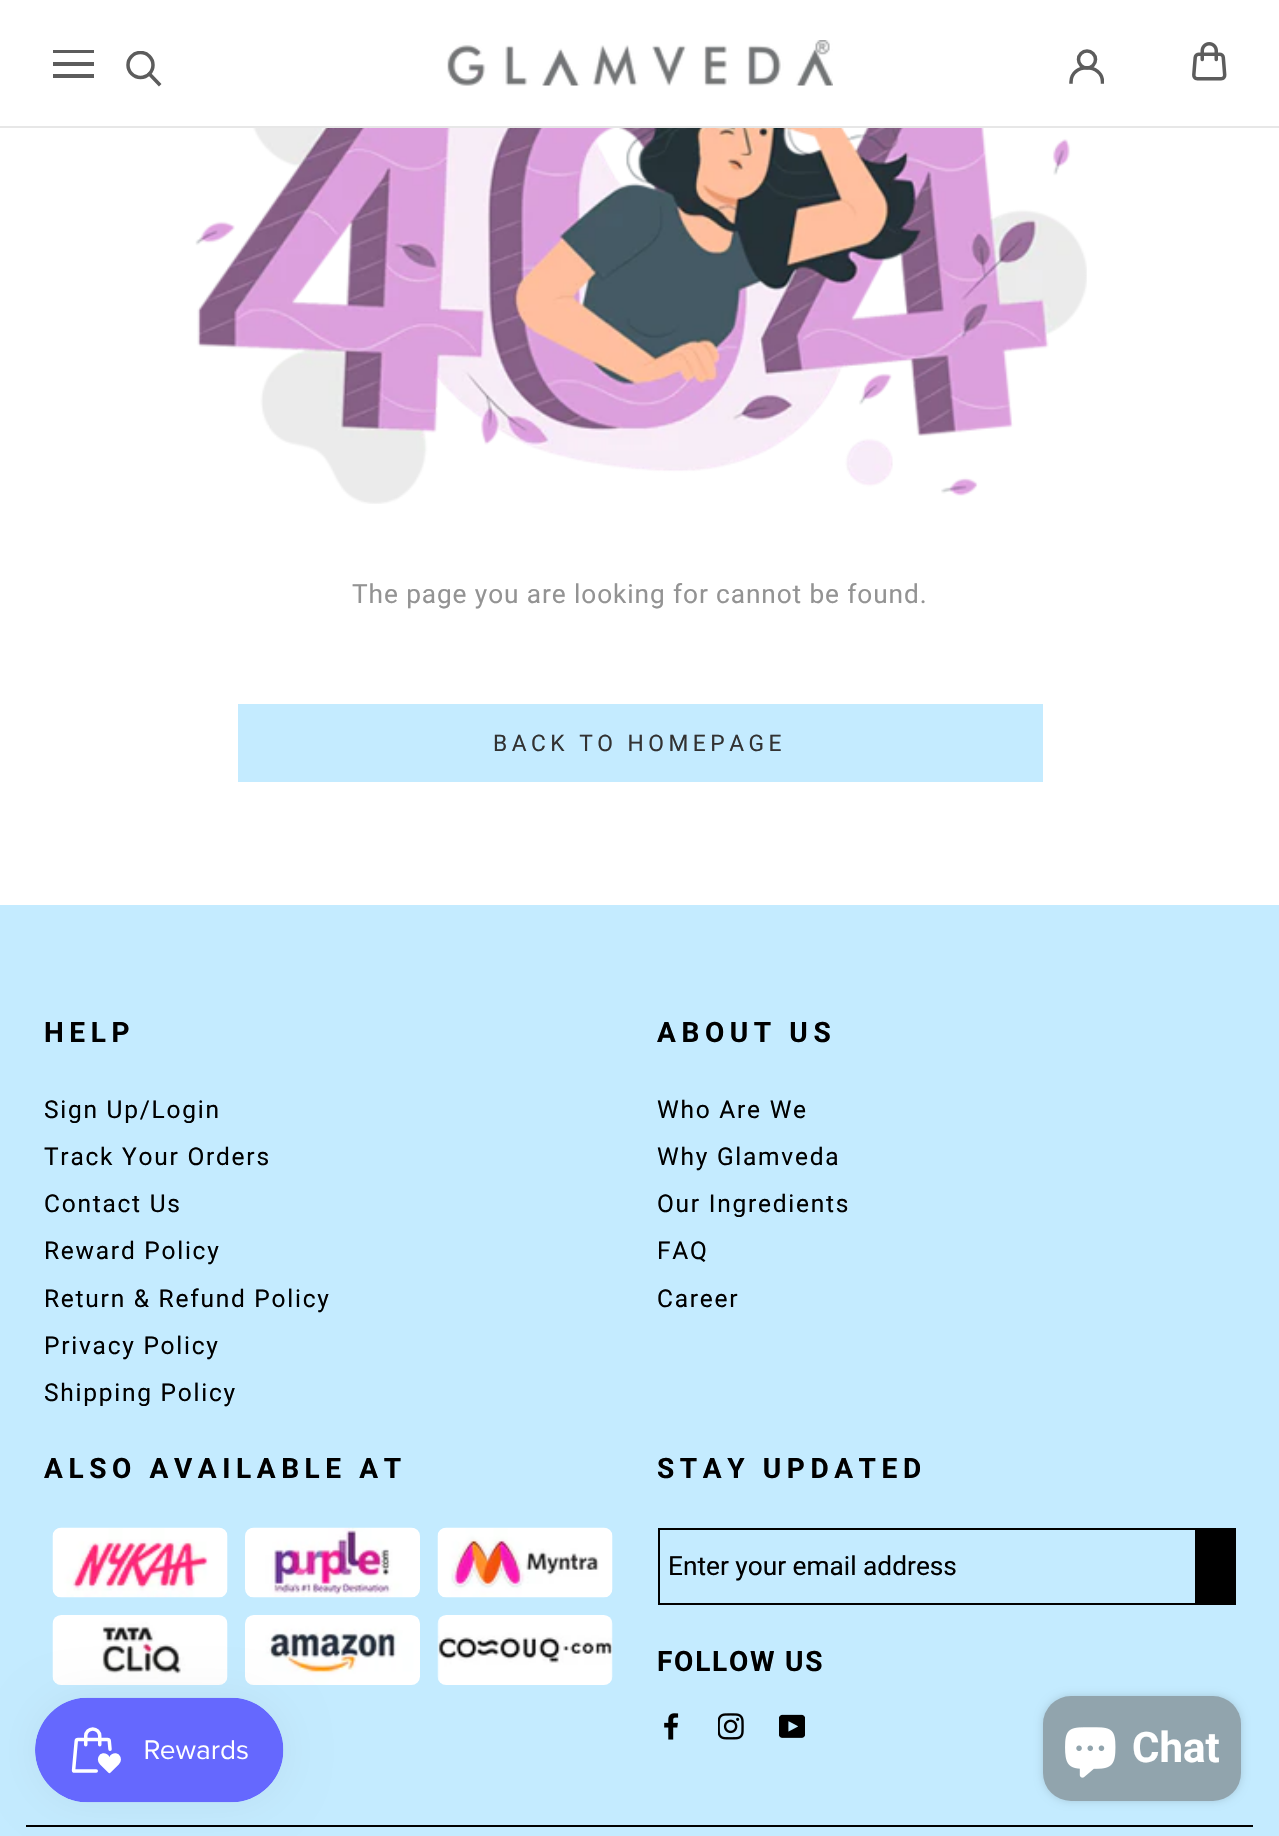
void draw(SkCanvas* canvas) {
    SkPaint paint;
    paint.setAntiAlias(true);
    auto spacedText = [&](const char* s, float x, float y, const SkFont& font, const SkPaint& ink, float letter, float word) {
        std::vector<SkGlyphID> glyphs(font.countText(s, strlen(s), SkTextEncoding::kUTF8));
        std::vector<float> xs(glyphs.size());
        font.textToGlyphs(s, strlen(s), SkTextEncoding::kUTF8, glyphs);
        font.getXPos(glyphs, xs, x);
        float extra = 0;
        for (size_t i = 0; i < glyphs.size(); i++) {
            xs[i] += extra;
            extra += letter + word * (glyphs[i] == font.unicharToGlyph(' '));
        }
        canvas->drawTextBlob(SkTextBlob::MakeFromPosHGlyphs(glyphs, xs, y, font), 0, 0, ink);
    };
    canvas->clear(0xFFFFFFFF);
    paint.setColor(0xFFE7E7E7);
    canvas->drawRect(SkRect::MakeXYWH(0, 126, 1279, 2), paint);
    canvas->save();
    canvas->clipRect(SkRect::MakeXYWH(53, 49, 42, 30));
    paint.setColor(0xFF5C5C5C);
    canvas->drawPath(SkPathBuilder().moveTo(52, 78).lineTo(52, 74).lineTo(94, 74).lineTo(94, 78).close().moveTo(52, 62).lineTo(94, 62).lineTo(94, 66).lineTo(52, 66).close().moveTo(52, 50).lineTo(94, 50).lineTo(94, 53).lineTo(52, 53).close().detach(), paint);
    canvas->restore();
    paint.setStyle(SkPaint::kStroke_Style);
    paint.setStrokeWidth(3.5f);
    paint.setStrokeCap(SkPaint::kSquare_Cap);
    canvas->drawPath(SkPathBuilder().moveTo(159, 84).lineTo(149.5f, 74).detach(), paint);
    canvas->save();
    canvas->clipRect(SkRect::MakeXYWH(126, 51, 37, 37));
    paint.setStrokeCap(SkPaint::kButt_Cap);
    canvas->drawCircle(140.5f, 65, 12.5f, paint);
    canvas->restore();
    canvas->drawImageRect(SkImages::DeferredFromEncodedData(SkData::MakeFromFileName("img1.png")), SkRect::MakeXYWH(447, 40, 386, 46), SkSamplingOptions());
    canvas->save();
    canvas->clipRect(SkRect::MakeXYWH(1069, 49, 35, 35));
    paint.setStrokeCap(SkPaint::kSquare_Cap);
    canvas->drawPath(SkPathBuilder().moveTo(1071, 82).cubicTo(1071, 63, 1102.5f, 63, 1102.5f, 82).detach(), paint);
    canvas->restore();
    paint.setStrokeCap(SkPaint::kButt_Cap);
    canvas->drawCircle(1087, 59.5f, 8.5f, paint);
    canvas->drawImageRect(SkImages::DeferredFromEncodedData(SkData::MakeFromFileName("img2.png")), SkRect::MakeXYWH(1192, 42, 35, 39), SkSamplingOptions());
    canvas->drawImageRect(SkImages::DeferredFromEncodedData(SkData::MakeFromFileName("img3.png")), SkRect::MakeXYWH(195, 128, 892, 376), SkSamplingOptions());
    SkFont font1(fontMgr->matchFamilyStyle("Roboto", SkFontStyle::Normal()), 26.25f);
    font1.setSubpixel(true);
    paint.setStyle(SkPaint::kFill_Style);
    paint.setColor(0xFF939393);
    spacedText("The page you are looking for cannot be found.", 352, 603, font1, paint, 0.9f, 0);
    paint.setStyle(SkPaint::kStroke_Style);
    paint.setStrokeWidth(2);
    paint.setColor(0xFFC4EBFF);
    canvas->drawRect(SkRect::MakeXYWH(239, 705, 803, 76), paint);
    paint.setStyle(SkPaint::kFill_Style);
    canvas->drawRect(SkRect::MakeXYWH(240, 706, 801, 74), paint);
    SkFont font2(fontMgr->matchFamilyStyle("Roboto", SkFontStyle::Normal()), 22.75f);
    font2.setSubpixel(true);
    paint.setColor(0xFF323232);
    spacedText("BACK TO HOMEPAGE", 493, 751, font2, paint, 4.5f, 0);
    paint.setColor(0xFFC4EBFF);
    canvas->drawRect(SkRect::MakeXYWH(0, 905, 1279, 931), paint);
    SkFont font3(fontMgr->matchFamilyStyle("Roboto", SkFontStyle::Bold()), 28);
    font3.setSubpixel(true);
    paint.setColor(0xFF000000);
    spacedText("HELP", 44, 1042, font3, paint, 5.6f, 0);
    SkFont font4(fontMgr->matchFamilyStyle("Roboto", SkFontStyle::Normal()), 24.5f);
    font4.setSubpixel(true);
    spacedText("Sign Up/Login", 44, 1118, font4, paint, 1.75f, 0);
    spacedText("Track Your Orders", 44, 1165, font4, paint, 1.75f, 0);
    spacedText("Contact Us", 44, 1212, font4, paint, 1.75f, 0);
    spacedText("Reward Policy", 44, 1259, font4, paint, 1.75f, 0);
    spacedText("Return & Refund Policy", 44, 1307, font4, paint, 1.75f, 0);
    spacedText("Privacy Policy", 44, 1354, font4, paint, 1.75f, 0);
    spacedText("Shipping Policy", 44, 1401, font4, paint, 1.75f, 0);
    spacedText("ABOUT US", 657, 1042, font3, paint, 5.6f, 0);
    spacedText("Who Are We", 657, 1118, font4, paint, 1.75f, 0);
    spacedText("Why Glamveda", 657, 1165, font4, paint, 1.75f, 0);
    spacedText("Our Ingredients", 657, 1212, font4, paint, 1.75f, 0);
    spacedText("FAQ", 657, 1259, font4, paint, 1.75f, 0);
    spacedText("Career", 657, 1307, font4, paint, 1.75f, 0);
    spacedText("ALSO AVAILABLE AT", 44, 1478, font3, paint, 5.6f, 0);
    canvas->drawImageRect(SkImages::DeferredFromEncodedData(SkData::MakeFromFileName("img4.png")), SkRect::MakeXYWH(52, 1527, 176, 71), SkSamplingOptions());
    canvas->drawImageRect(SkImages::DeferredFromEncodedData(SkData::MakeFromFileName("img5.png")), SkRect::MakeXYWH(245, 1527, 175, 71), SkSamplingOptions());
    canvas->drawImageRect(SkImages::DeferredFromEncodedData(SkData::MakeFromFileName("img6.png")), SkRect::MakeXYWH(437, 1527, 176, 71), SkSamplingOptions());
    canvas->drawImageRect(SkImages::DeferredFromEncodedData(SkData::MakeFromFileName("img7.png")), SkRect::MakeXYWH(52, 1615, 176, 70), SkSamplingOptions());
    canvas->drawImageRect(SkImages::DeferredFromEncodedData(SkData::MakeFromFileName("img8.png")), SkRect::MakeXYWH(245, 1615, 175, 70), SkSamplingOptions());
    canvas->drawImageRect(SkImages::DeferredFromEncodedData(SkData::MakeFromFileName("img9.png")), SkRect::MakeXYWH(437, 1615, 176, 70), SkSamplingOptions());
    spacedText("STAY UPDATED", 657, 1478, font3, paint, 5.6f, 0);
    paint.setStyle(SkPaint::kStroke_Style);
    canvas->drawRect(SkRect::MakeXYWH(659, 1529, 537, 75), paint);
    paint.setStyle(SkPaint::kFill_Style);
    canvas->drawString("Enter your email address", 668, 1575, font1, paint);
    paint.setStyle(SkPaint::kStroke_Style);
    canvas->drawRect(SkRect::MakeXYWH(1198, 1529, 37, 75), paint);
    paint.setStyle(SkPaint::kFill_Style);
    canvas->drawRect(SkRect::MakeXYWH(1199, 1530, 35, 73), paint);
    spacedText("FOLLOW US", 657, 1671, font3, paint, 1.75f, 0);
    canvas->drawImageRect(SkImages::DeferredFromEncodedData(SkData::MakeFromFileName("img10.png")), SkRect::MakeXYWH(664, 1713, 15, 27), SkSamplingOptions());
    canvas->drawImageRect(SkImages::DeferredFromEncodedData(SkData::MakeFromFileName("img11.png")), SkRect::MakeXYWH(718, 1713, 26, 27), SkSamplingOptions());
    canvas->drawImageRect(SkImages::DeferredFromEncodedData(SkData::MakeFromFileName("img12.png")), SkRect::MakeXYWH(779, 1714, 26, 24), SkSamplingOptions());
    canvas->drawRect(SkRect::MakeXYWH(26, 1825, 1227, 2), paint);
    paint.setColor(0x0D000000);
    paint.setMaskFilter(SkMaskFilter::MakeBlur(kNormal_SkBlurStyle, 22));
    canvas->drawRoundRect(SkRect::MakeXYWH(35, 1698, 249, 105), 52.5f, 52.5f, paint);
    paint.setMaskFilter(nullptr);
    canvas->drawImageRect(SkImages::DeferredFromEncodedData(SkData::MakeFromFileName("img13.png")), SkRect::MakeXYWH(35, 1697, 249, 106), SkSamplingOptions());
    paint.setColor(0x26000000);
    paint.setMaskFilter(SkMaskFilter::MakeBlur(kNormal_SkBlurStyle, 4.5f));
    canvas->drawRoundRect(SkRect::MakeXYWH(1043, 1696, 198, 105), 28, 28, paint);
    paint.setMaskFilter(nullptr);
    paint.setColor(0xFF91A4AD);
    canvas->drawRoundRect(SkRect::MakeXYWH(1043, 1696, 198, 105), 28, 28, paint);
    canvas->drawImageRect(SkImages::DeferredFromEncodedData(SkData::MakeFromFileName("img14.png")), SkRect::MakeXYWH(1065, 1727, 51, 51), SkSamplingOptions());
    SkFont font5(fontMgr->matchFamilyStyle("Roboto", SkFontStyle::Bold()), 42);
    font5.setSubpixel(true);
    paint.setColor(0xFFFFFFFF);
    canvas->drawString("Chat", 1132, 1762, font5, paint);
}
